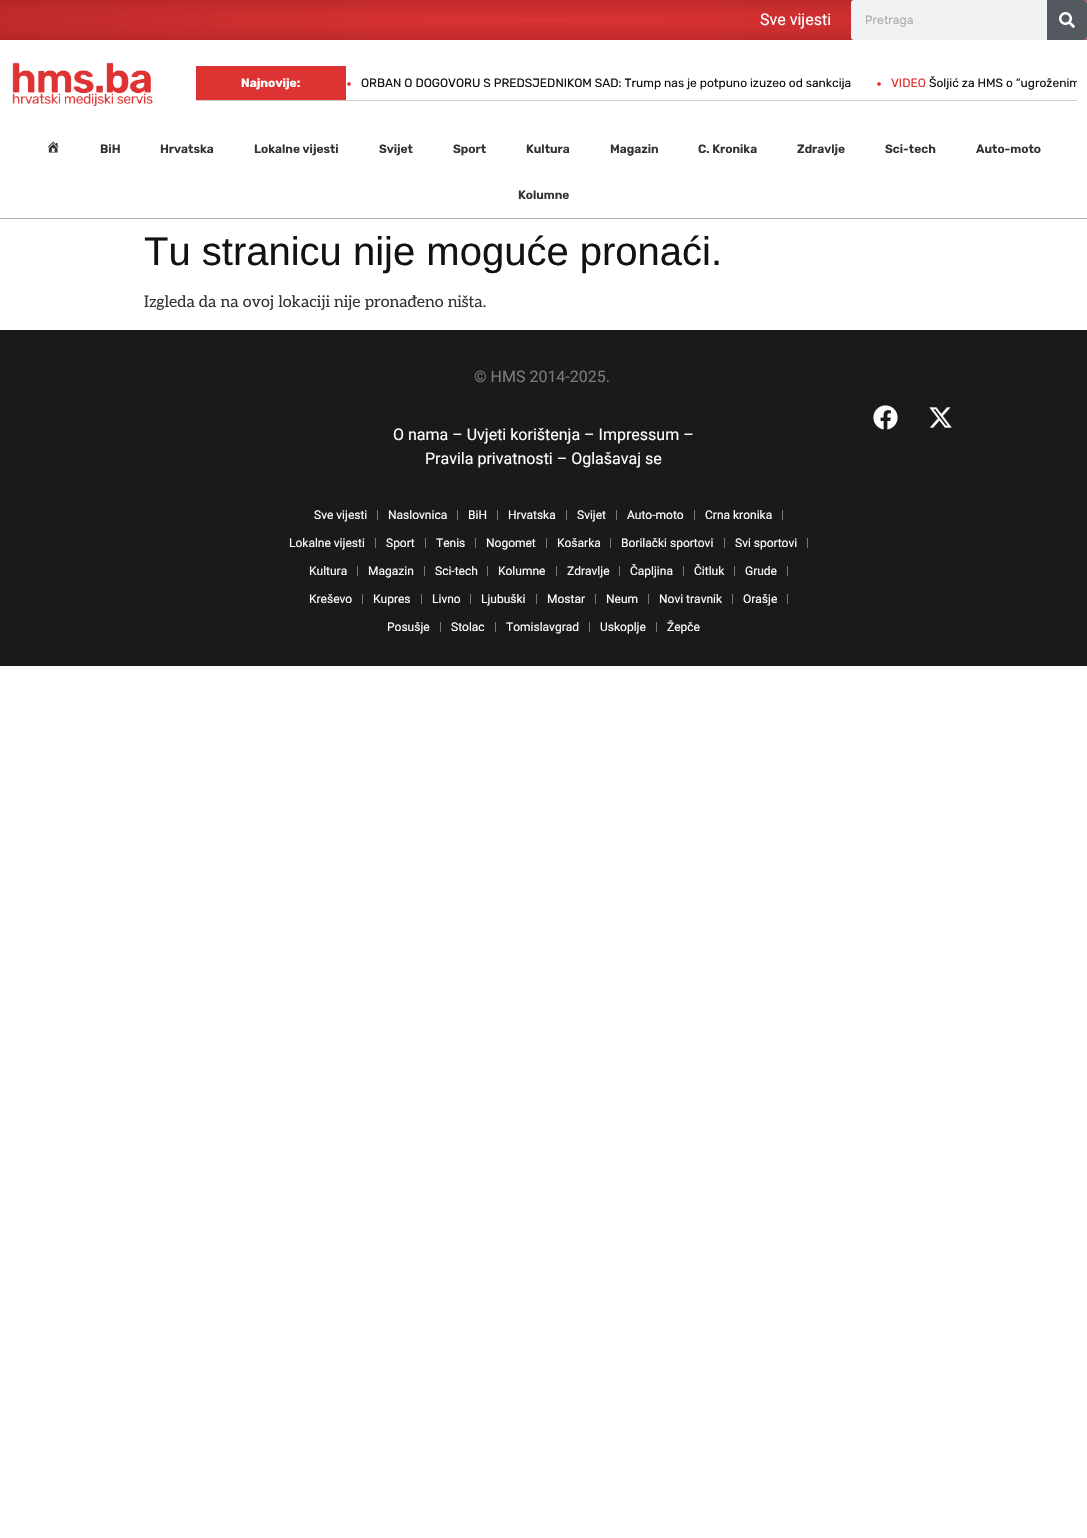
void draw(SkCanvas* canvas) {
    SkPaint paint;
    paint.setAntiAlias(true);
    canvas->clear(0xFFFFFFFF);
    {
        const SkColor colors[] = {0xFFDD3333, 0xFFB52727};
        const float stops[] = {0, 1};
        SkMatrix m = SkMatrix::Translate(544, 20).preScale(769, 28);
        paint.setShader(SkGradientShader::MakeRadial({0, 0}, 1, colors, stops, 2, SkTileMode::kClamp, 0, &m));
        paint.setAlpha(255);
    }
    canvas->drawRect(SkRect::MakeXYWH(0, 0, 1087, 40), paint);
    SkFont font1(fontMgr->matchFamilyStyle("Roboto", SkFontStyle::Normal()), 16);
    font1.setSubpixel(true);
    paint.setShader(nullptr);
    paint.setColor(0xFFFFFFFF);
    canvas->drawString("Sve vijesti", 760, 25, font1, paint);
    paint.setColor(0xFFF1F2F3);
    canvas->drawRoundRect(SkRect::MakeXYWH(851, 0, 236, 40), 3, 3, paint);
    SkFont font2(fontMgr->matchFamilyStyle("Onest", SkFontStyle::Normal()), 12);
    font2.setSubpixel(true);
    paint.setColor(0xFFAAAAAA);
    canvas->drawString("Pretraga", 865, 24, font2, paint);
    paint.setColor(0xFF54595F);
    canvas->drawPath(SkPathBuilder().moveTo(1047, 0).lineTo(1084, 0).cubicTo(1085.5f, 0, 1087, 1.5f, 1087, 3).lineTo(1087, 37).cubicTo(1087, 38.5f, 1085.5f, 40, 1084, 40).lineTo(1047, 40).close().detach(), paint);
    canvas->drawImageRect(SkImages::DeferredFromEncodedData(SkData::MakeFromFileName("img1.png")), SkRect::MakeXYWH(1059, 12, 16, 16), SkSamplingOptions());
    canvas->drawImageRect(SkImages::DeferredFromEncodedData(SkData::MakeFromFileName("img2.png")), SkRect::MakeXYWH(12, 62, 141, 44), SkSamplingOptions());
    paint.setColor(0xFFCCCCCC);
    canvas->drawRect(SkRect::MakeXYWH(196, 100, 881, 1), paint);
    paint.setColor(0xFFDD3333);
    canvas->drawRect(SkRect::MakeXYWH(196, 66, 150, 34), paint);
    SkFont font3(fontMgr->matchFamilyStyle("Rubik", SkFontStyle::Bold()), 12);
    font3.setSubpixel(true);
    paint.setColor(0xFFFFFFFF);
    canvas->drawString("Najnovije:", 241, 87, font3, paint);
    SkFont font4(fontMgr->matchFamilyStyle("Rubik", SkFontStyle::Normal()), 16);
    font4.setSubpixel(true);
    paint.setColor(0xFFDD3333);
    canvas->drawString("•", 346, 89, font4, paint);
    SkFont font5(fontMgr->matchFamilyStyle("Rubik", SkFontStyle::Normal()), 12);
    font5.setSubpixel(true);
    paint.setColor(0xFF121212);
    canvas->drawString("ORBAN O DOGOVORU S PREDSJEDNIKOM SAD: Trump nas je potpuno izuzeo od sankcija", 361, 87, font5, paint);
    paint.setColor(0xFFDD3333);
    canvas->drawString("•", 876, 89, font4, paint);
    canvas->drawString("VIDEO", 891, 87, font5, paint);
    canvas->save();
    canvas->clipRect(SkRect::MakeXYWH(346, 74, 731, 18));
    paint.setColor(0xFF121212);
    canvas->drawString("Šoljić za HMS o “ugroženim", 929, 87, font5, paint);
    canvas->restore();
    canvas->drawImageRect(SkImages::DeferredFromEncodedData(SkData::MakeFromFileName("img3.png")), SkRect::MakeXYWH(47, 141, 12, 12), SkSamplingOptions());
    SkFont font6(fontMgr->matchFamilyStyle("Rubik", SkFontStyle(600, SkFontStyle::kNormal_Width, SkFontStyle::kUpright_Slant)), 12);
    font6.setSubpixel(true);
    paint.setColor(0xFF333333);
    canvas->drawString("BiH", 100, 153, font6, paint);
    canvas->drawString("Hrvatska", 160, 153, font6, paint);
    canvas->drawString("Lokalne vijesti", 254, 153, font6, paint);
    canvas->drawString("Svijet", 379, 153, font6, paint);
    canvas->drawString("Sport", 453, 153, font6, paint);
    canvas->drawString("Kultura", 526, 153, font6, paint);
    canvas->drawString("Magazin", 610, 153, font6, paint);
    canvas->drawString("C. Kronika", 698, 153, font6, paint);
    canvas->drawString("Zdravlje", 797, 153, font6, paint);
    canvas->drawString("Sci-tech", 885, 153, font6, paint);
    canvas->drawString("Auto-moto", 976, 153, font6, paint);
    canvas->drawString("Kolumne", 518, 199, font6, paint);
    paint.setColor(0xFFB0B0B0);
    canvas->drawRect(SkRect::MakeXYWH(0, 218, 1087, 1), paint);
    SkFont font7(fontMgr->matchFamilyStyle("Liberation Sans", SkFontStyle::Normal()), 40);
    font7.setSubpixel(true);
    paint.setColor(0xFF121212);
    canvas->drawString("Tu stranicu nije moguće pronaći.", 144, 265, font7, paint);
    SkFont font8(fontMgr->matchFamilyStyle("Aleo", SkFontStyle::Normal()), 16);
    font8.setSubpixel(true);
    paint.setColor(0xFF333333);
    canvas->drawString("Izgleda da na ovoj lokaciji nije pronađeno ništa.", 144, 307, font8, paint);
    paint.setColor(0xFF1A1A1A);
    canvas->drawRect(SkRect::MakeXYWH(0, 330, 1087, 336), paint);
    paint.setColor(0xFF7A7A7A);
    canvas->drawString("© HMS 2014-2025.", 474, 382, font1, paint);
    paint.setColor(0xFFFFFFFF);
    canvas->drawString("O nama – Uvjeti korištenja – Impressum –", 393, 440, font1, paint);
    canvas->drawString("Pravila privatnosti – Oglašavaj se", 425, 464, font1, paint);
    canvas->drawImageRect(SkImages::DeferredFromEncodedData(SkData::MakeFromFileName("img4.png")), SkRect::MakeXYWH(873, 405, 25, 25), SkSamplingOptions());
    canvas->drawImageRect(SkImages::DeferredFromEncodedData(SkData::MakeFromFileName("img5.png")), SkRect::MakeXYWH(929, 407, 23, 21), SkSamplingOptions());
    SkFont font9(fontMgr->matchFamilyStyle("Roboto", SkFontStyle::Normal()), 12);
    font9.setSubpixel(true);
    canvas->drawString("Sve vijesti", 314, 519, font9, paint);
    paint.setColor(0xFF7A7A7A);
    canvas->drawRect(SkRect::MakeXYWH(377, 510, 1, 10), paint);
    paint.setColor(0xFFFFFFFF);
    canvas->drawString("Naslovnica", 388, 519, font9, paint);
    paint.setColor(0xFF7A7A7A);
    canvas->drawRect(SkRect::MakeXYWH(457, 510, 1, 10), paint);
    paint.setColor(0xFFFFFFFF);
    canvas->drawString("BiH", 468, 519, font9, paint);
    paint.setColor(0xFF7A7A7A);
    canvas->drawRect(SkRect::MakeXYWH(497, 510, 1, 10), paint);
    paint.setColor(0xFFFFFFFF);
    canvas->drawString("Hrvatska", 508, 519, font9, paint);
    paint.setColor(0xFF7A7A7A);
    canvas->drawRect(SkRect::MakeXYWH(566, 510, 1, 10), paint);
    paint.setColor(0xFFFFFFFF);
    canvas->drawString("Svijet", 577, 519, font9, paint);
    paint.setColor(0xFF7A7A7A);
    canvas->drawRect(SkRect::MakeXYWH(616, 510, 1, 10), paint);
    paint.setColor(0xFFFFFFFF);
    canvas->drawString("Auto-moto", 627, 519, font9, paint);
    paint.setColor(0xFF7A7A7A);
    canvas->drawRect(SkRect::MakeXYWH(694, 510, 1, 10), paint);
    paint.setColor(0xFFFFFFFF);
    canvas->drawString("Crna kronika", 705, 519, font9, paint);
    paint.setColor(0xFF7A7A7A);
    canvas->drawRect(SkRect::MakeXYWH(782, 510, 1, 10), paint);
    paint.setColor(0xFFFFFFFF);
    canvas->drawString("Lokalne vijesti", 289, 547, font9, paint);
    paint.setColor(0xFF7A7A7A);
    canvas->drawRect(SkRect::MakeXYWH(375, 538, 1, 10), paint);
    paint.setColor(0xFFFFFFFF);
    canvas->drawString("Sport", 386, 547, font9, paint);
    paint.setColor(0xFF7A7A7A);
    canvas->drawRect(SkRect::MakeXYWH(425, 538, 1, 10), paint);
    paint.setColor(0xFFFFFFFF);
    canvas->drawString("Tenis", 436, 547, font9, paint);
    paint.setColor(0xFF7A7A7A);
    canvas->drawRect(SkRect::MakeXYWH(475, 538, 1, 10), paint);
    paint.setColor(0xFFFFFFFF);
    canvas->drawString("Nogomet", 486, 547, font9, paint);
    paint.setColor(0xFF7A7A7A);
    canvas->drawRect(SkRect::MakeXYWH(546, 538, 1, 10), paint);
    paint.setColor(0xFFFFFFFF);
    canvas->drawString("Košarka", 557, 547, font9, paint);
    paint.setColor(0xFF7A7A7A);
    canvas->drawRect(SkRect::MakeXYWH(610, 538, 1, 10), paint);
    paint.setColor(0xFFFFFFFF);
    canvas->drawString("Borilački sportovi", 621, 547, font9, paint);
    paint.setColor(0xFF7A7A7A);
    canvas->drawRect(SkRect::MakeXYWH(724, 538, 1, 10), paint);
    paint.setColor(0xFFFFFFFF);
    canvas->drawString("Svi sportovi", 735, 547, font9, paint);
    paint.setColor(0xFF7A7A7A);
    canvas->drawRect(SkRect::MakeXYWH(807, 538, 1, 10), paint);
    paint.setColor(0xFFFFFFFF);
    canvas->drawString("Kultura", 309, 575, font9, paint);
    paint.setColor(0xFF7A7A7A);
    canvas->drawRect(SkRect::MakeXYWH(357, 566, 1, 10), paint);
    paint.setColor(0xFFFFFFFF);
    canvas->drawString("Magazin", 368, 575, font9, paint);
    paint.setColor(0xFF7A7A7A);
    canvas->drawRect(SkRect::MakeXYWH(424, 566, 1, 10), paint);
    paint.setColor(0xFFFFFFFF);
    canvas->drawString("Sci-tech", 435, 575, font9, paint);
    paint.setColor(0xFF7A7A7A);
    canvas->drawRect(SkRect::MakeXYWH(487, 566, 1, 10), paint);
    paint.setColor(0xFFFFFFFF);
    canvas->drawString("Kolumne", 498, 575, font9, paint);
    paint.setColor(0xFF7A7A7A);
    canvas->drawRect(SkRect::MakeXYWH(556, 566, 1, 10), paint);
    paint.setColor(0xFFFFFFFF);
    canvas->drawString("Zdravlje", 567, 575, font9, paint);
    paint.setColor(0xFF7A7A7A);
    canvas->drawRect(SkRect::MakeXYWH(619, 566, 1, 10), paint);
    paint.setColor(0xFFFFFFFF);
    canvas->drawString("Čapljina", 630, 575, font9, paint);
    paint.setColor(0xFF7A7A7A);
    canvas->drawRect(SkRect::MakeXYWH(683, 566, 1, 10), paint);
    paint.setColor(0xFFFFFFFF);
    canvas->drawString("Čitluk", 694, 575, font9, paint);
    paint.setColor(0xFF7A7A7A);
    canvas->drawRect(SkRect::MakeXYWH(734, 566, 1, 10), paint);
    paint.setColor(0xFFFFFFFF);
    canvas->drawString("Grude", 745, 575, font9, paint);
    paint.setColor(0xFF7A7A7A);
    canvas->drawRect(SkRect::MakeXYWH(787, 566, 1, 10), paint);
    paint.setColor(0xFFFFFFFF);
    canvas->drawString("Kreševo", 309, 603, font9, paint);
    paint.setColor(0xFF7A7A7A);
    canvas->drawRect(SkRect::MakeXYWH(362, 594, 1, 10), paint);
    paint.setColor(0xFFFFFFFF);
    canvas->drawString("Kupres", 373, 603, font9, paint);
    paint.setColor(0xFF7A7A7A);
    canvas->drawRect(SkRect::MakeXYWH(421, 594, 1, 10), paint);
    paint.setColor(0xFFFFFFFF);
    canvas->drawString("Livno", 432, 603, font9, paint);
    paint.setColor(0xFF7A7A7A);
    canvas->drawRect(SkRect::MakeXYWH(470, 594, 1, 10), paint);
    paint.setColor(0xFFFFFFFF);
    canvas->drawString("Ljubuški", 481, 603, font9, paint);
    paint.setColor(0xFF7A7A7A);
    canvas->drawRect(SkRect::MakeXYWH(536, 594, 1, 10), paint);
    paint.setColor(0xFFFFFFFF);
    canvas->drawString("Mostar", 547, 603, font9, paint);
    paint.setColor(0xFF7A7A7A);
    canvas->drawRect(SkRect::MakeXYWH(595, 594, 1, 10), paint);
    paint.setColor(0xFFFFFFFF);
    canvas->drawString("Neum", 606, 603, font9, paint);
    paint.setColor(0xFF7A7A7A);
    canvas->drawRect(SkRect::MakeXYWH(648, 594, 1, 10), paint);
    paint.setColor(0xFFFFFFFF);
    canvas->drawString("Novi travnik", 659, 603, font9, paint);
    paint.setColor(0xFF7A7A7A);
    canvas->drawRect(SkRect::MakeXYWH(732, 594, 1, 10), paint);
    paint.setColor(0xFFFFFFFF);
    canvas->drawString("Orašje", 743, 603, font9, paint);
    paint.setColor(0xFF7A7A7A);
    canvas->drawRect(SkRect::MakeXYWH(787, 594, 1, 10), paint);
    paint.setColor(0xFFFFFFFF);
    canvas->drawString("Posušje", 387, 631, font9, paint);
    paint.setColor(0xFF7A7A7A);
    canvas->drawRect(SkRect::MakeXYWH(440, 622, 1, 10), paint);
    paint.setColor(0xFFFFFFFF);
    canvas->drawString("Stolac", 451, 631, font9, paint);
    paint.setColor(0xFF7A7A7A);
    canvas->drawRect(SkRect::MakeXYWH(495, 622, 1, 10), paint);
    paint.setColor(0xFFFFFFFF);
    canvas->drawString("Tomislavgrad", 506, 631, font9, paint);
    paint.setColor(0xFF7A7A7A);
    canvas->drawRect(SkRect::MakeXYWH(589, 622, 1, 10), paint);
    paint.setColor(0xFFFFFFFF);
    canvas->drawString("Uskoplje", 600, 631, font9, paint);
    paint.setColor(0xFF7A7A7A);
    canvas->drawRect(SkRect::MakeXYWH(656, 622, 1, 10), paint);
    paint.setColor(0xFFFFFFFF);
    canvas->drawString("Žepče", 667, 631, font9, paint);
}
